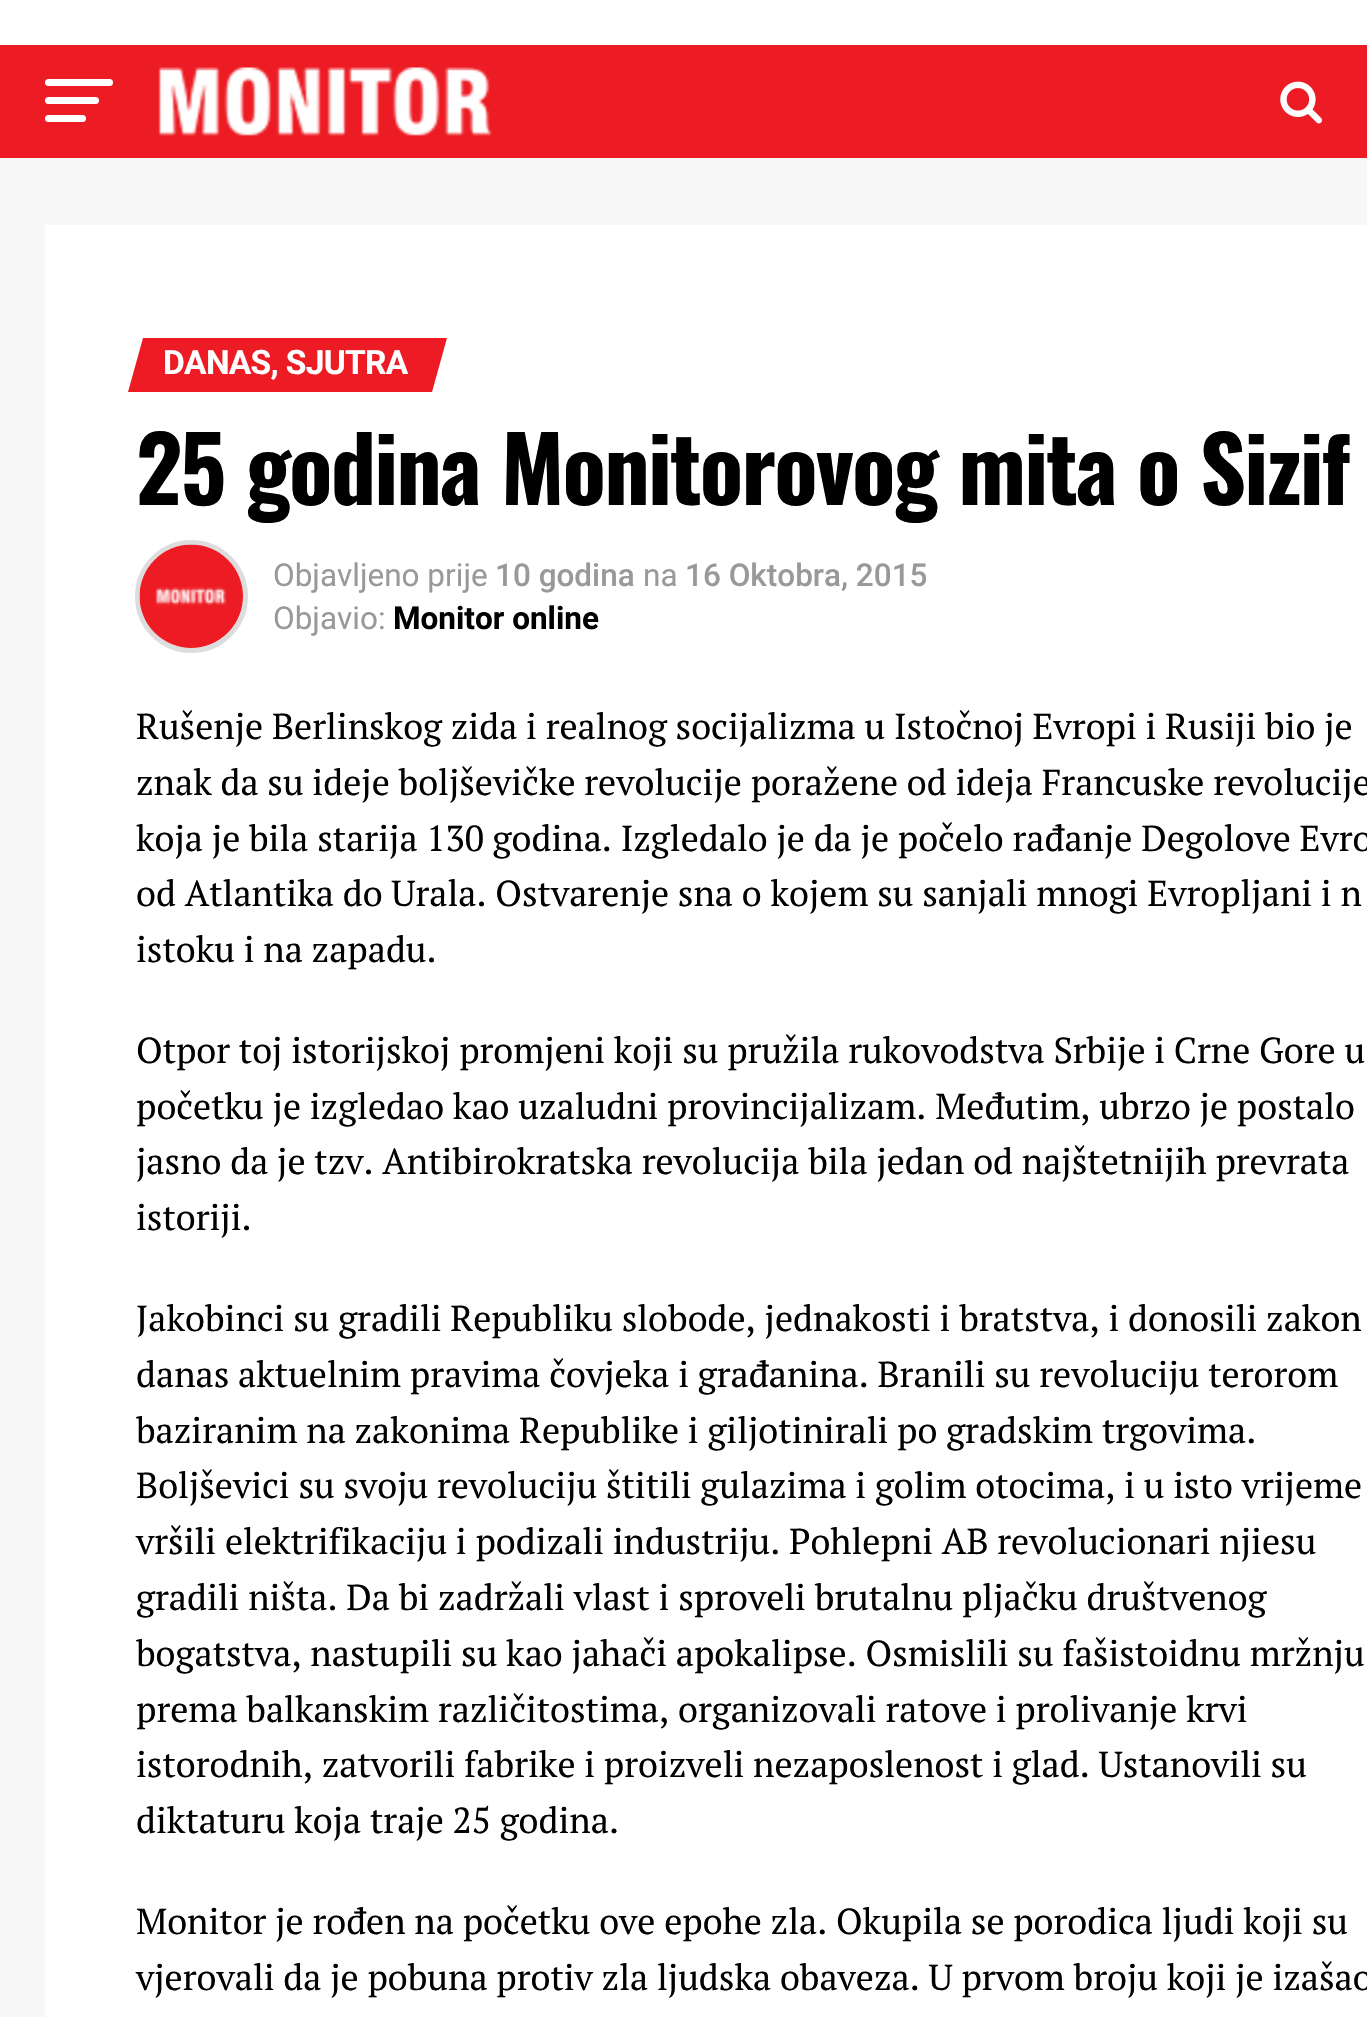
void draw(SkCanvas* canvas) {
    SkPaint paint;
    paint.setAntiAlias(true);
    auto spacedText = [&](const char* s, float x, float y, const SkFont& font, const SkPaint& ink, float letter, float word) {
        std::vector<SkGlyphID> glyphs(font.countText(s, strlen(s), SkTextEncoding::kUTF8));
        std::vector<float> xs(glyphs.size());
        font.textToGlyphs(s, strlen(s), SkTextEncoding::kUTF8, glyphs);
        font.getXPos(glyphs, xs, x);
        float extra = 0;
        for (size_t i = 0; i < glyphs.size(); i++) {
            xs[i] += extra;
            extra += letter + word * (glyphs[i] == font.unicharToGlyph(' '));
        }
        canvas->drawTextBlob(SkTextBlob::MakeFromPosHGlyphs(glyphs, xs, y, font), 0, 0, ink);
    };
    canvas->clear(0xFFFFFFFF);
    paint.setColor(0xFFED1C24);
    canvas->drawRect(SkRect::MakeXYWH(0, 45, 1367, 113), paint);
    paint.setColor(0xFFFFFFFF);
    canvas->drawRoundRect(SkRect::MakeXYWH(45, 79, 68, 7), 3.5f, 3.5f, paint);
    canvas->drawRoundRect(SkRect::MakeXYWH(45, 97, 54, 7), 3.5f, 3.5f, paint);
    canvas->drawRoundRect(SkRect::MakeXYWH(45, 115, 41, 7), 3.5f, 3.5f, paint);
    canvas->drawImageRect(SkImages::DeferredFromEncodedData(SkData::MakeFromFileName("img1.png")), SkRect::MakeXYWH(158, 67, 334, 69), SkSamplingOptions());
    canvas->drawImageRect(SkImages::DeferredFromEncodedData(SkData::MakeFromFileName("img2.png")), SkRect::MakeXYWH(1280, 81, 42, 43), SkSamplingOptions());
    paint.setColor(0xFFF7F7F7);
    canvas->drawRect(SkRect::MakeXYWH(0, 158, 1367, 1859), paint);
    paint.setColor(0xFFFFFFFF);
    canvas->drawRect(SkRect::MakeXYWH(45, 225, 1322, 1792), paint);
    paint.setColor(0xFFED1C24);
    canvas->drawPath(SkPathBuilder().moveTo(143, 338).lineTo(447, 338).lineTo(432, 392).lineTo(128, 392).close().detach(), paint);
    SkFont font1(fontMgr->matchFamilyStyle("Roboto", SkFontStyle::Bold()), 33.5f);
    font1.setSubpixel(true);
    paint.setColor(0xFFFFFFFF);
    spacedText("DANAS, SJUTRA", 163, 374, font1, paint, -0.7f, 0);
    SkFont font2(fontMgr->matchFamilyStyle("Oswald", SkFontStyle::Bold()), 90);
    font2.setSubpixel(true);
    paint.setColor(0xFF000000);
    spacedText("25 godina Monitorovog mita o Sizif", 136, 505, font2, paint, -1.8f, 0);
    paint.setStyle(SkPaint::kStroke_Style);
    paint.setStrokeWidth(5);
    paint.setColor(0xFFDDDDDD);
    canvas->drawCircle(191.5f, 596.5f, 54, paint);
    canvas->drawImageRect(SkImages::DeferredFromEncodedData(SkData::MakeFromFileName("img3.png")), SkRect::MakeXYWH(139, 544, 104, 104), SkSamplingOptions());
    SkFont font3(fontMgr->matchFamilyStyle("Roboto", SkFontStyle::Normal()), 31.5f);
    font3.setSubpixel(true);
    paint.setStyle(SkPaint::kFill_Style);
    paint.setColor(0xFF999999);
    canvas->drawString("Objavljeno prije", 273, 586, font3, paint);
    SkFont font4(fontMgr->matchFamilyStyle("Roboto", SkFontStyle(500, SkFontStyle::kNormal_Width, SkFontStyle::kUpright_Slant)), 31.5f);
    font4.setSubpixel(true);
    canvas->drawString("10 godina", 495, 586, font4, paint);
    canvas->drawString("na", 643, 586, font3, paint);
    canvas->drawString("16 Oktobra, 2015", 685, 586, font4, paint);
    canvas->drawString("Objavio:", 273, 629, font3, paint);
    SkFont font5(fontMgr->matchFamilyStyle("Roboto", SkFontStyle::Bold()), 31.5f);
    font5.setSubpixel(true);
    paint.setColor(0xFF000000);
    canvas->drawString("Monitor online", 393, 629, font5, paint);
    SkFont font6(fontMgr->matchFamilyStyle("PT Serif", SkFontStyle::Normal()), 36);
    font6.setSubpixel(true);
    canvas->drawString("Rušenje Berlinskog zida i realnog socijalizma u Istočnoj Evropi i Rusiji bio je", 136, 739, font6, paint);
    canvas->drawString("znak da su ideje boljševičke revolucije poražene od ideja Francuske revolucije", 136, 795, font6, paint);
    canvas->drawString("koja je bila starija 130 godina. Izgledalo je da je počelo rađanje Degolove Evro", 136, 851, font6, paint);
    canvas->drawString("od Atlantika do Urala. Ostvarenje sna o kojem su sanjali mnogi Evropljani i n", 136, 906, font6, paint);
    canvas->drawString("istoku i na zapadu.", 136, 962, font6, paint);
    canvas->drawString("Otpor toj istorijskoj promjeni koji su pružila rukovodstva Srbije i Crne Gore u", 136, 1063, font6, paint);
    canvas->drawString("početku je izgledao kao uzaludni provincijalizam. Međutim, ubrzo je postalo", 136, 1119, font6, paint);
    canvas->drawString("jasno da je tzv. Antibirokratska revolucija bila jedan od najštetnijih prevrata", 136, 1174, font6, paint);
    canvas->drawString("istoriji.", 136, 1230, font6, paint);
    canvas->drawString("Jakobinci su gradili Republiku slobode, jednakosti i bratstva, i donosili zakon", 136, 1331, font6, paint);
    canvas->drawString("danas aktuelnim pravima čovjeka i građanina. Branili su revoluciju terorom", 136, 1387, font6, paint);
    canvas->drawString("baziranim na zakonima Republike i giljotinirali po gradskim trgovima.", 136, 1443, font6, paint);
    canvas->drawString("Boljševici su svoju revoluciju štitili gulazima i golim otocima, i u isto vrijeme", 136, 1498, font6, paint);
    canvas->drawString("vršili elektrifikaciju i podizali industriju. Pohlepni AB revolucionari njiesu", 136, 1554, font6, paint);
    canvas->drawString("gradili ništa. Da bi zadržali vlast i sproveli brutalnu pljačku društvenog", 136, 1610, font6, paint);
    canvas->drawString("bogatstva, nastupili su kao jahači apokalipse. Osmislili su fašistoidnu mržnju", 136, 1666, font6, paint);
    canvas->drawString("prema balkanskim različitostima, organizovali ratove i prolivanje krvi", 136, 1722, font6, paint);
    canvas->drawString("istorodnih, zatvorili fabrike i proizveli nezaposlenost i glad. Ustanovili su", 136, 1777, font6, paint);
    canvas->drawString("diktaturu koja traje 25 godina.", 136, 1833, font6, paint);
    canvas->drawString("Monitor je rođen na početku ove epohe zla. Okupila se porodica ljudi koji su", 136, 1934, font6, paint);
    canvas->drawString("vjerovali da je pobuna protiv zla ljudska obaveza. U prvom broju koji je izašao", 136, 1990, font6, paint);
}
